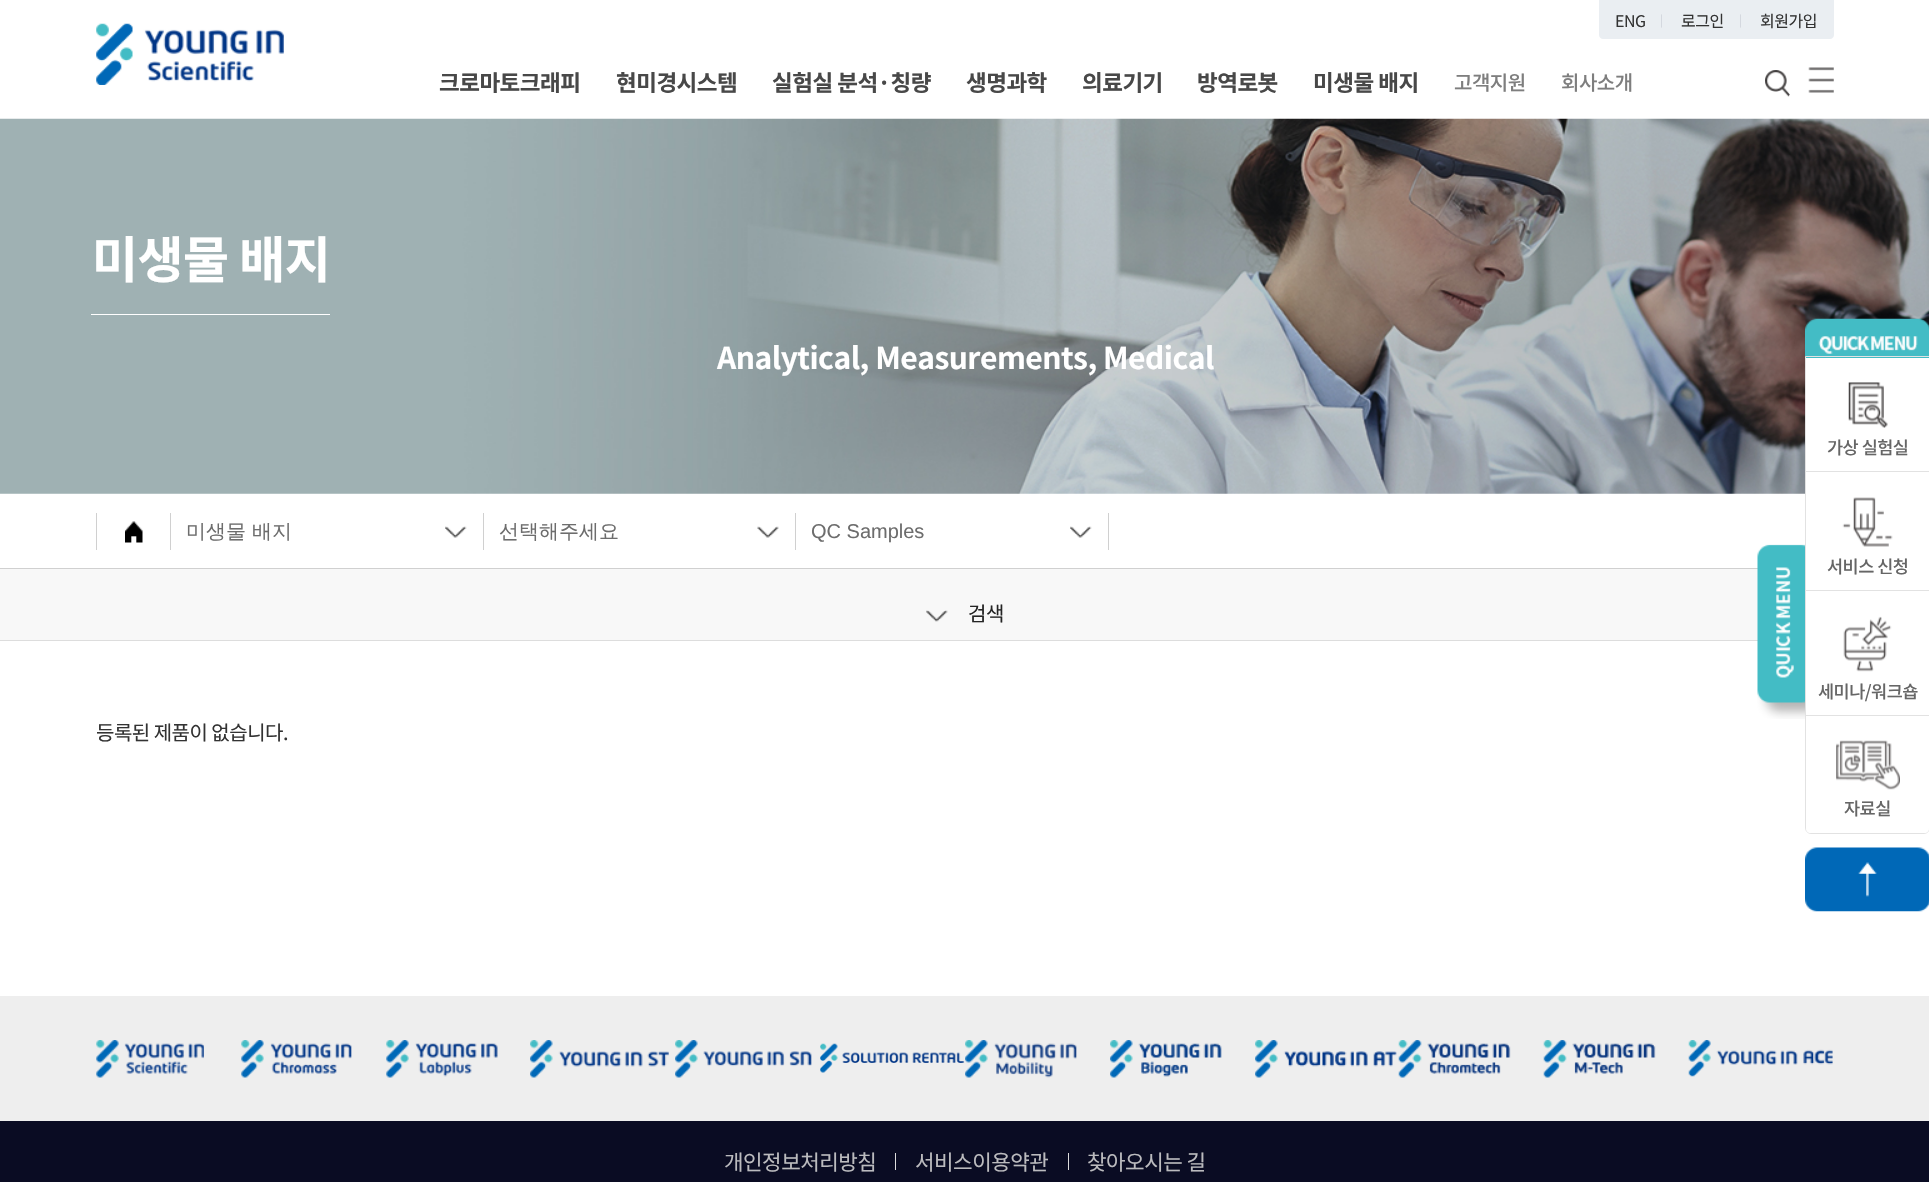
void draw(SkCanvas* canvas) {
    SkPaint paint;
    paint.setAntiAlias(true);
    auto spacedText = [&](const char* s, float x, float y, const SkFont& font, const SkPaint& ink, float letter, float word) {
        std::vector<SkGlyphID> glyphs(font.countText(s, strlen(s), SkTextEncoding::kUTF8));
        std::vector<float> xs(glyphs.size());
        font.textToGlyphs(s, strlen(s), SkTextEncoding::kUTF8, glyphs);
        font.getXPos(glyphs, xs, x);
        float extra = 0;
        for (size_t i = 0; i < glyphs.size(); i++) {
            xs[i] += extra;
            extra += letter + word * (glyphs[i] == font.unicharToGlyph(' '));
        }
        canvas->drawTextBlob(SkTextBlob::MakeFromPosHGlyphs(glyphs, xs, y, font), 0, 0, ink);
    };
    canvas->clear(0xFFFFFFFF);
    paint.setColor(0xFFEAEEF2);
    canvas->drawPath(SkPathBuilder().moveTo(1599, 0).lineTo(1834, 0).lineTo(1834, 35).cubicTo(1834, 37, 1832, 39, 1830, 39).lineTo(1603, 39).cubicTo(1601, 39, 1599, 37, 1599, 35).close().detach(), paint);
    SkFont font1(fontMgr->matchFamilyStyle("Noto Sans KR", SkFontStyle::Normal()), 16);
    font1.setSubpixel(true);
    paint.setColor(0xFF333333);
    spacedText("ENG", 1615, 27, font1, paint, -0.5f, 0);
    SkFont font2(fontMgr->matchFamilyStyle("Dotum", SkFontStyle::Normal()), 14);
    font2.setSubpixel(true);
    paint.setColor(0xFFD2D6DD);
    spacedText("|", 1658, 26, font2, paint, -0.5f, 0);
    paint.setColor(0xFF333333);
    spacedText("로그인", 1681, 27, font1, paint, -0.5f, 0);
    paint.setColor(0xFFD2D6DD);
    spacedText("|", 1737, 26, font2, paint, -0.5f, 0);
    paint.setColor(0xFF333333);
    spacedText("회원가입", 1760, 27, font1, paint, -0.5f, 0);
    canvas->drawImageRect(SkImages::DeferredFromEncodedData(SkData::MakeFromFileName("img1.png")), SkRect::MakeXYWH(96, 23, 188, 62), SkSamplingOptions());
    SkFont font3(fontMgr->matchFamilyStyle("Noto Sans KR", SkFontStyle::Bold()), 22.5f);
    font3.setSubpixel(true);
    paint.setColor(0xFF484848);
    spacedText("크로마토크래피", 439, 91, font3, paint, -0.5f, 0);
    spacedText("현미경시스템", 616, 91, font3, paint, -0.5f, 0);
    spacedText("실험실 분석·칭량", 772, 91, font3, paint, -0.5f, 0);
    spacedText("생명과학", 966, 91, font3, paint, -0.5f, 0);
    spacedText("의료기기", 1082, 91, font3, paint, -0.5f, 0);
    spacedText("방역로봇", 1197, 91, font3, paint, -0.5f, 0);
    spacedText("미생물 배지", 1313, 91, font3, paint, -0.5f, 0);
    SkFont font4(fontMgr->matchFamilyStyle("Noto Sans KR", SkFontStyle(500, SkFontStyle::kNormal_Width, SkFontStyle::kUpright_Slant)), 20);
    font4.setSubpixel(true);
    paint.setColor(0xFF7E7E7E);
    spacedText("고객지원", 1454, 90, font4, paint, -0.5f, 0);
    spacedText("회사소개", 1561, 90, font4, paint, -0.5f, 0);
    canvas->drawImageRect(SkImages::DeferredFromEncodedData(SkData::MakeFromFileName("img2.png")), SkRect::MakeXYWH(1765, 70, 25, 27), SkSamplingOptions());
    canvas->drawImageRect(SkImages::DeferredFromEncodedData(SkData::MakeFromFileName("img3.png")), SkRect::MakeXYWH(1808, 67, 26, 26), SkSamplingOptions());
    canvas->drawImageRect(SkImages::DeferredFromEncodedData(SkData::MakeFromFileName("img4.png")), SkRect::MakeXYWH(0, 118, 1929, 376), SkSamplingOptions());
    SkFont font5(fontMgr->matchFamilyStyle("Noto Sans KR", SkFontStyle::Bold()), 50);
    font5.setSubpixel(true);
    paint.setColor(0xFFFFFFFF);
    spacedText("미생물 배지", 92, 278, font5, paint, -0.5f, 0);
    canvas->drawRect(SkRect::MakeXYWH(91, 314, 239, 1), paint);
    SkFont font6(fontMgr->matchFamilyStyle("Noto Sans KR", SkFontStyle::Bold()), 30);
    font6.setSubpixel(true);
    spacedText("Analytical, Measurements, Medical", 717, 369, font6, paint, -0.5f, 0);
    paint.setColor(0xFFD0D0D0);
    canvas->drawRect(SkRect::MakeXYWH(0, 568, 1758, 1), paint);
    canvas->drawRect(SkRect::MakeXYWH(170, 513, 1, 37), paint);
    canvas->drawRect(SkRect::MakeXYWH(96, 513, 1, 37), paint);
    canvas->drawImageRect(SkImages::DeferredFromEncodedData(SkData::MakeFromFileName("img5.png")), SkRect::MakeXYWH(125, 521, 18, 22), SkSamplingOptions());
    canvas->drawImageRect(SkImages::DeferredFromEncodedData(SkData::MakeFromFileName("img6.png")), SkRect::MakeXYWH(445, 526, 22, 12), SkSamplingOptions());
    canvas->drawRect(SkRect::MakeXYWH(483, 513, 1, 37), paint);
    SkFont font7(fontMgr->matchFamilyStyle("WenQuanYi Zen Hei", SkFontStyle(500, SkFontStyle::kNormal_Width, SkFontStyle::kUpright_Slant)), 20);
    font7.setSubpixel(true);
    paint.setColor(0xFF6D6D6D);
    canvas->drawString("미생물 배지", 186, 538, font7, paint);
    canvas->drawImageRect(SkImages::DeferredFromEncodedData(SkData::MakeFromFileName("img7.png")), SkRect::MakeXYWH(757, 526, 22, 12), SkSamplingOptions());
    paint.setColor(0xFFD0D0D0);
    canvas->drawRect(SkRect::MakeXYWH(795, 513, 1, 37), paint);
    paint.setColor(0xFF6D6D6D);
    canvas->drawString("선택해주세요", 499, 538, font7, paint);
    canvas->drawImageRect(SkImages::DeferredFromEncodedData(SkData::MakeFromFileName("img8.png")), SkRect::MakeXYWH(1070, 526, 22, 12), SkSamplingOptions());
    paint.setColor(0xFFD0D0D0);
    canvas->drawRect(SkRect::MakeXYWH(1108, 513, 1, 37), paint);
    SkFont font8(fontMgr->matchFamilyStyle("Liberation Sans", SkFontStyle::Normal()), 20);
    font8.setSubpixel(true);
    paint.setColor(0xFF6D6D6D);
    canvas->drawString("QC Samples", 811, 538, font8, paint);
    canvas->drawImageRect(SkImages::DeferredFromEncodedData(SkData::MakeFromFileName("img9.png")), SkRect::MakeXYWH(1805, 318, 124, 40), SkSamplingOptions());
    paint.setColor(0xFFF8F8F8);
    canvas->drawRect(SkRect::MakeXYWH(0, 569, 1758, 71), paint);
    paint.setColor(0xFFDDDDDD);
    canvas->drawRect(SkRect::MakeXYWH(0, 640, 1758, 1), paint);
    canvas->drawImageRect(SkImages::DeferredFromEncodedData(SkData::MakeFromFileName("img10.png")), SkRect::MakeXYWH(1757, 544, 48, 175), SkSamplingOptions());
    paint.setStyle(SkPaint::kStroke_Style);
    paint.setStrokeWidth(1);
    paint.setColor(0xFFE2E2E2);
    canvas->drawPath(SkPathBuilder().moveTo(1805.5f, 356.5f).lineTo(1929.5f, 356.5f).lineTo(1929.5f, 828).cubicTo(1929.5f, 831, 1927, 833.5f, 1924, 833.5f).lineTo(1811, 833.5f).cubicTo(1808, 833.5f, 1805.5f, 831, 1805.5f, 828).close().detach(), paint);
    paint.setStyle(SkPaint::kFill_Style);
    paint.setColor(0xFFFFFFFF);
    canvas->drawRect(SkRect::MakeXYWH(1806, 358, 123, 136), paint);
    paint.setColor(0xFFE2E2E2);
    canvas->drawRect(SkRect::MakeXYWH(1806, 471, 123, 1), paint);
    canvas->drawImageRect(SkImages::DeferredFromEncodedData(SkData::MakeFromFileName("img11.png")), SkRect::MakeXYWH(1848, 382, 40, 46), SkSamplingOptions());
    SkFont font9(fontMgr->matchFamilyStyle("Noto Sans KR", SkFontStyle(500, SkFontStyle::kNormal_Width, SkFontStyle::kUpright_Slant)), 17.5f);
    font9.setSubpixel(true);
    paint.setColor(0xFF666666);
    spacedText("가상 실험실", 1827, 454, font9, paint, -0.5f, 0);
    paint.setColor(0xFFE2E2E2);
    canvas->drawRect(SkRect::MakeXYWH(1806, 590, 123, 1), paint);
    canvas->drawImageRect(SkImages::DeferredFromEncodedData(SkData::MakeFromFileName("img12.png")), SkRect::MakeXYWH(1842, 497, 51, 50), SkSamplingOptions());
    paint.setColor(0xFF666666);
    spacedText("서비스 신청", 1827, 573, font9, paint, -0.5f, 0);
    paint.setColor(0xFFE2E2E2);
    canvas->drawRect(SkRect::MakeXYWH(1806, 715, 123, 1), paint);
    canvas->drawImageRect(SkImages::DeferredFromEncodedData(SkData::MakeFromFileName("img13.png")), SkRect::MakeXYWH(1843, 616, 49, 56), SkSamplingOptions());
    paint.setColor(0xFF666666);
    spacedText("세미나/워크숍", 1818, 698, font9, paint, -0.5f, 0);
    paint.setColor(0xFFFFFFFF);
    canvas->drawPath(SkPathBuilder().moveTo(1806, 716).lineTo(1929, 716).lineTo(1929, 828).cubicTo(1929, 831, 1927, 833, 1924, 833).lineTo(1811, 833).cubicTo(1808, 833, 1806, 831, 1806, 828).close().detach(), paint);
    canvas->drawImageRect(SkImages::DeferredFromEncodedData(SkData::MakeFromFileName("img14.png")), SkRect::MakeXYWH(1836, 740, 64, 50), SkSamplingOptions());
    paint.setColor(0xFF666666);
    spacedText("자료실", 1844, 815, font9, paint, -0.5f, 0);
    canvas->drawImageRect(SkImages::DeferredFromEncodedData(SkData::MakeFromFileName("img15.png")), SkRect::MakeXYWH(1805, 847, 124, 65), SkSamplingOptions());
    canvas->drawImageRect(SkImages::DeferredFromEncodedData(SkData::MakeFromFileName("img16.png")), SkRect::MakeXYWH(926, 610, 22, 12), SkSamplingOptions());
    SkFont font10(fontMgr->matchFamilyStyle("Noto Sans KR", SkFontStyle::Normal()), 20);
    font10.setSubpixel(true);
    paint.setColor(0xFF252525);
    spacedText("검색", 968, 621, font10, paint, -0.5f, 0);
    paint.setColor(0xFF333333);
    spacedText("등록된 제품이 없습니다.", 96, 740, font10, paint, -0.5f, 0);
    paint.setColor(0xFFEEEEEE);
    canvas->drawRect(SkRect::MakeXYWH(0, 996, 1929, 125), paint);
    canvas->drawImageRect(SkImages::DeferredFromEncodedData(SkData::MakeFromFileName("img17.png")), SkRect::MakeXYWH(96, 1040, 108, 38), SkSamplingOptions());
    canvas->drawImageRect(SkImages::DeferredFromEncodedData(SkData::MakeFromFileName("img18.png")), SkRect::MakeXYWH(241, 1040, 111, 38), SkSamplingOptions());
    canvas->drawImageRect(SkImages::DeferredFromEncodedData(SkData::MakeFromFileName("img19.png")), SkRect::MakeXYWH(386, 1040, 112, 38), SkSamplingOptions());
    canvas->drawImageRect(SkImages::DeferredFromEncodedData(SkData::MakeFromFileName("img20.png")), SkRect::MakeXYWH(530, 1040, 139, 38), SkSamplingOptions());
    canvas->drawImageRect(SkImages::DeferredFromEncodedData(SkData::MakeFromFileName("img21.png")), SkRect::MakeXYWH(675, 1040, 137, 38), SkSamplingOptions());
    canvas->drawImageRect(SkImages::DeferredFromEncodedData(SkData::MakeFromFileName("img22.png")), SkRect::MakeXYWH(820, 1043, 145, 30), SkSamplingOptions());
    canvas->drawImageRect(SkImages::DeferredFromEncodedData(SkData::MakeFromFileName("img23.png")), SkRect::MakeXYWH(965, 1040, 112, 38), SkSamplingOptions());
    canvas->drawImageRect(SkImages::DeferredFromEncodedData(SkData::MakeFromFileName("img24.png")), SkRect::MakeXYWH(1110, 1040, 112, 38), SkSamplingOptions());
    canvas->drawImageRect(SkImages::DeferredFromEncodedData(SkData::MakeFromFileName("img25.png")), SkRect::MakeXYWH(1255, 1040, 142, 38), SkSamplingOptions());
    canvas->drawImageRect(SkImages::DeferredFromEncodedData(SkData::MakeFromFileName("img26.png")), SkRect::MakeXYWH(1398, 1040, 113, 38), SkSamplingOptions());
    canvas->drawImageRect(SkImages::DeferredFromEncodedData(SkData::MakeFromFileName("img27.png")), SkRect::MakeXYWH(1543, 1040, 113, 38), SkSamplingOptions());
    canvas->drawImageRect(SkImages::DeferredFromEncodedData(SkData::MakeFromFileName("img28.png")), SkRect::MakeXYWH(1688, 1040, 145, 37), SkSamplingOptions());
    paint.setColor(0xFF0A0C23);
    canvas->drawRect(SkRect::MakeXYWH(0, 1121, 1929, 61), paint);
    SkFont font11(fontMgr->matchFamilyStyle("Noto Sans KR", SkFontStyle::Normal()), 21.25f);
    font11.setSubpixel(true);
    paint.setColor(0xFFBBBBBE);
    spacedText("개인정보처리방침", 724, 1170, font11, paint, -0.5f, 0);
    paint.setColor(0xFFDCDCDC);
    canvas->drawRect(SkRect::MakeXYWH(895, 1153, 1, 17), paint);
    paint.setColor(0xFFBBBBBE);
    spacedText("서비스이용약관", 915, 1170, font11, paint, -0.5f, 0);
    paint.setColor(0xFFDCDCDC);
    canvas->drawRect(SkRect::MakeXYWH(1068, 1153, 1, 17), paint);
    paint.setColor(0xFFBBBBBE);
    spacedText("찾아오시는 길", 1087, 1170, font11, paint, -0.5f, 0);
}
